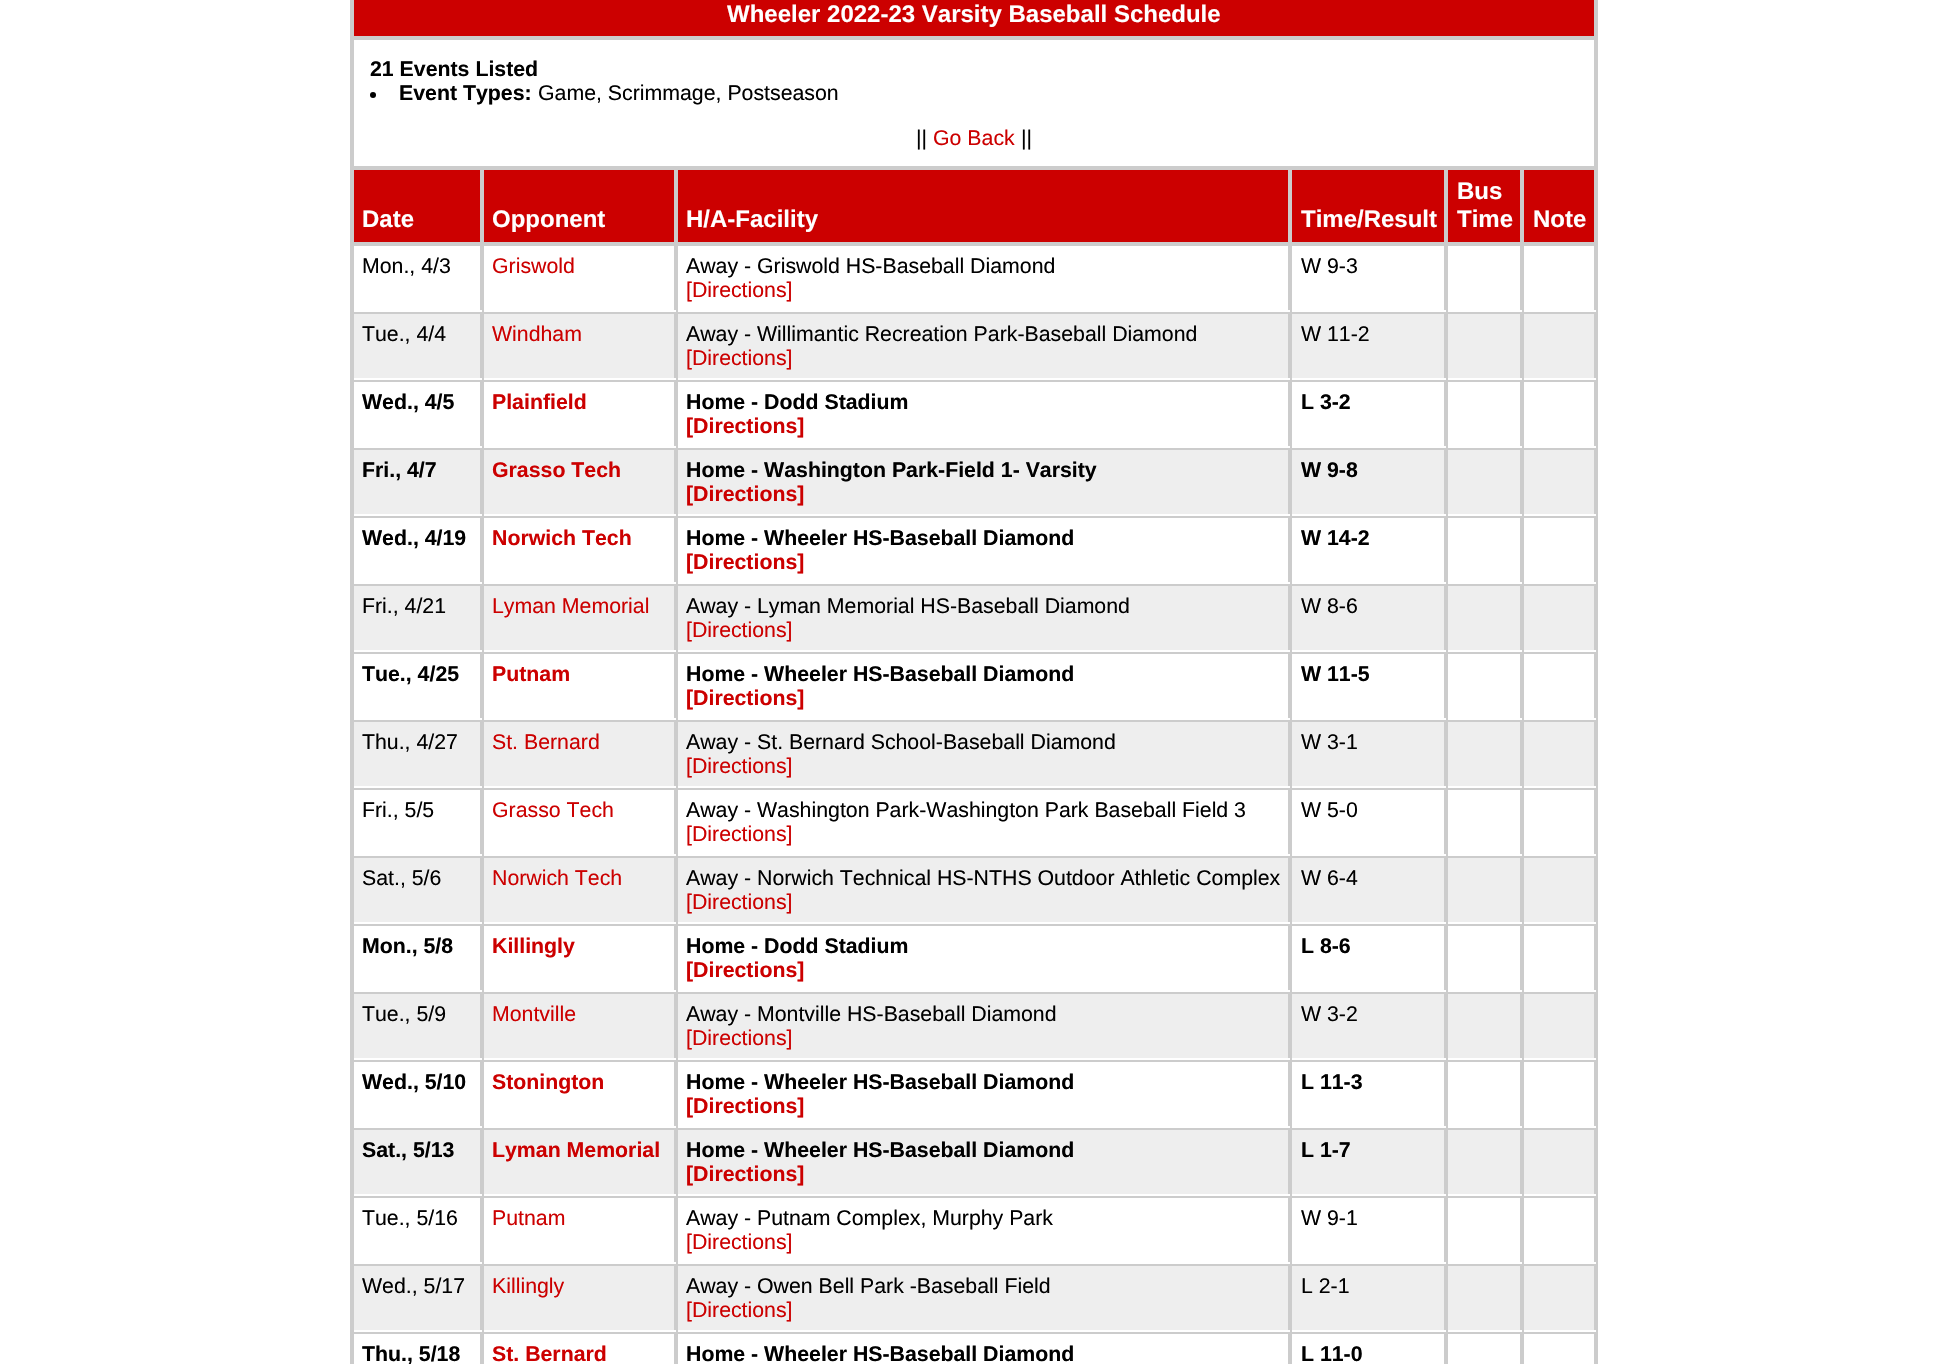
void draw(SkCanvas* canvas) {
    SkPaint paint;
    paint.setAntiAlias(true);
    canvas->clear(0xFFFFFFFF);
    paint.setColor(0xFFCCCCCC);
    canvas->drawRect(SkRect::MakeXYWH(350, 0, 1248, 1364), paint);
    paint.setColor(0xFFCC0000);
    canvas->drawRect(SkRect::MakeXYWH(354, 0, 1240, 36), paint);
    SkFont font1(fontMgr->matchFamilyStyle("Liberation Sans", SkFontStyle::Bold()), 24);
    font1.setSubpixel(true);
    paint.setColor(0xFFFFFFFF);
    canvas->drawString("Wheeler 2022-23 Varsity Baseball Schedule", 727, 22, font1, paint);
    canvas->drawRect(SkRect::MakeXYWH(354, 40, 1240, 126), paint);
    SkFont font2(fontMgr->matchFamilyStyle("Liberation Sans", SkFontStyle::Bold()), 21.3f);
    font2.setSubpixel(true);
    paint.setColor(0xFF000000);
    canvas->drawString("21 Events Listed", 370, 76, font2, paint);
    canvas->drawCircle(373, 95, 3, paint);
    canvas->drawString("Event Types:", 399, 100, font2, paint);
    SkFont font3(fontMgr->matchFamilyStyle("Liberation Sans", SkFontStyle::Normal()), 21.3f);
    font3.setSubpixel(true);
    canvas->drawString("Game, Scrimmage, Postseason", 538, 100, font3, paint);
    canvas->drawString("||", 916, 145, font3, paint);
    paint.setColor(0xFFCC0000);
    canvas->drawString("Go Back", 933, 145, font3, paint);
    paint.setColor(0xFF000000);
    canvas->drawString("||", 1021, 145, font3, paint);
    paint.setColor(0xFFCC0000);
    canvas->drawRect(SkRect::MakeXYWH(354, 170, 126, 72), paint);
    paint.setColor(0xFFFFFFFF);
    canvas->drawString("Date", 362, 227, font1, paint);
    paint.setColor(0xFFCC0000);
    canvas->drawRect(SkRect::MakeXYWH(484, 170, 190, 72), paint);
    paint.setColor(0xFFFFFFFF);
    canvas->drawString("Opponent", 492, 227, font1, paint);
    paint.setColor(0xFFCC0000);
    canvas->drawRect(SkRect::MakeXYWH(678, 170, 610, 72), paint);
    paint.setColor(0xFFFFFFFF);
    canvas->drawString("H/A-Facility", 686, 227, font1, paint);
    paint.setColor(0xFFCC0000);
    canvas->drawRect(SkRect::MakeXYWH(1292, 170, 152, 72), paint);
    paint.setColor(0xFFFFFFFF);
    canvas->drawString("Time/Result", 1301, 227, font1, paint);
    paint.setColor(0xFFCC0000);
    canvas->drawRect(SkRect::MakeXYWH(1448, 170, 72, 72), paint);
    paint.setColor(0xFFFFFFFF);
    canvas->drawString("Bus", 1457, 199, font1, paint);
    canvas->drawString("Time", 1457, 227, font1, paint);
    paint.setColor(0xFFCC0000);
    canvas->drawRect(SkRect::MakeXYWH(1524, 170, 70, 72), paint);
    paint.setColor(0xFFFFFFFF);
    canvas->drawString("Note", 1533, 227, font1, paint);
    canvas->drawRect(SkRect::MakeXYWH(354, 246, 1240, 64), paint);
    paint.setColor(0xFFCCCCCC);
    canvas->drawRect(SkRect::MakeXYWH(1520, 244, 2, 68), paint);
    paint.setColor(0xFFFFFFFF);
    canvas->drawRect(SkRect::MakeXYWH(1446, 310, 150, 2), paint);
    paint.setColor(0xFFCCCCCC);
    canvas->drawRect(SkRect::MakeXYWH(1446, 244, 2, 68), paint);
    canvas->drawRect(SkRect::MakeXYWH(480, 244, 2, 68), paint);
    paint.setColor(0xFFFFFFFF);
    canvas->drawRect(SkRect::MakeXYWH(352, 310, 130, 2), paint);
    paint.setColor(0xFFCCCCCC);
    canvas->drawRect(SkRect::MakeXYWH(352, 310, 2, 2), paint);
    paint.setColor(0xFF000000);
    canvas->drawString("Mon., 4/3", 362, 273, font3, paint);
    paint.setColor(0xFFCCCCCC);
    canvas->drawRect(SkRect::MakeXYWH(674, 244, 2, 68), paint);
    paint.setColor(0xFFFFFFFF);
    canvas->drawRect(SkRect::MakeXYWH(482, 310, 194, 2), paint);
    paint.setColor(0xFFCCCCCC);
    canvas->drawRect(SkRect::MakeXYWH(482, 244, 2, 68), paint);
    paint.setColor(0xFFCC0000);
    canvas->drawString("Griswold", 492, 273, font3, paint);
    paint.setColor(0xFFCCCCCC);
    canvas->drawRect(SkRect::MakeXYWH(1288, 244, 2, 68), paint);
    paint.setColor(0xFFFFFFFF);
    canvas->drawRect(SkRect::MakeXYWH(676, 310, 614, 2), paint);
    paint.setColor(0xFFCCCCCC);
    canvas->drawRect(SkRect::MakeXYWH(676, 244, 2, 68), paint);
    paint.setColor(0xFF000000);
    canvas->drawString("Away - Griswold HS-Baseball Diamond", 686, 273, font3, paint);
    paint.setColor(0xFFCC0000);
    canvas->drawString("[Directions]", 686, 297, font3, paint);
    paint.setColor(0xFFCCCCCC);
    canvas->drawRect(SkRect::MakeXYWH(1444, 244, 2, 68), paint);
    paint.setColor(0xFFFFFFFF);
    canvas->drawRect(SkRect::MakeXYWH(1290, 310, 156, 2), paint);
    paint.setColor(0xFFCCCCCC);
    canvas->drawRect(SkRect::MakeXYWH(1290, 244, 2, 68), paint);
    paint.setColor(0xFF000000);
    canvas->drawString("W 9-3", 1301, 273, font3, paint);
    paint.setColor(0xFFCCCCCC);
    canvas->drawRect(SkRect::MakeXYWH(1522, 244, 2, 68), paint);
    paint.setColor(0xFFEEEEEE);
    canvas->drawRect(SkRect::MakeXYWH(354, 314, 1240, 64), paint);
    paint.setColor(0xFFCCCCCC);
    canvas->drawRect(SkRect::MakeXYWH(1520, 312, 2, 68), paint);
    paint.setColor(0xFFFFFFFF);
    canvas->drawRect(SkRect::MakeXYWH(1446, 378, 150, 2), paint);
    paint.setColor(0xFFCCCCCC);
    canvas->drawRect(SkRect::MakeXYWH(1446, 312, 2, 68), paint);
    canvas->drawRect(SkRect::MakeXYWH(480, 312, 2, 68), paint);
    paint.setColor(0xFFFFFFFF);
    canvas->drawRect(SkRect::MakeXYWH(352, 378, 130, 2), paint);
    paint.setColor(0xFFCCCCCC);
    canvas->drawRect(SkRect::MakeXYWH(352, 378, 2, 2), paint);
    paint.setColor(0xFF000000);
    canvas->drawString("Tue., 4/4", 362, 341, font3, paint);
    paint.setColor(0xFFCCCCCC);
    canvas->drawRect(SkRect::MakeXYWH(674, 312, 2, 68), paint);
    paint.setColor(0xFFFFFFFF);
    canvas->drawRect(SkRect::MakeXYWH(482, 378, 194, 2), paint);
    paint.setColor(0xFFCCCCCC);
    canvas->drawRect(SkRect::MakeXYWH(482, 312, 2, 68), paint);
    paint.setColor(0xFFCC0000);
    canvas->drawString("Windham", 492, 341, font3, paint);
    paint.setColor(0xFFCCCCCC);
    canvas->drawRect(SkRect::MakeXYWH(1288, 312, 2, 68), paint);
    paint.setColor(0xFFFFFFFF);
    canvas->drawRect(SkRect::MakeXYWH(676, 378, 614, 2), paint);
    paint.setColor(0xFFCCCCCC);
    canvas->drawRect(SkRect::MakeXYWH(676, 312, 2, 68), paint);
    paint.setColor(0xFF000000);
    canvas->drawString("Away - Willimantic Recreation Park-Baseball Diamond", 686, 341, font3, paint);
    paint.setColor(0xFFCC0000);
    canvas->drawString("[Directions]", 686, 365, font3, paint);
    paint.setColor(0xFFCCCCCC);
    canvas->drawRect(SkRect::MakeXYWH(1444, 312, 2, 68), paint);
    paint.setColor(0xFFFFFFFF);
    canvas->drawRect(SkRect::MakeXYWH(1290, 378, 156, 2), paint);
    paint.setColor(0xFFCCCCCC);
    canvas->drawRect(SkRect::MakeXYWH(1290, 312, 2, 68), paint);
    paint.setColor(0xFF000000);
    canvas->drawString("W 11-2", 1301, 341, font3, paint);
    paint.setColor(0xFFCCCCCC);
    canvas->drawRect(SkRect::MakeXYWH(1522, 312, 2, 68), paint);
    paint.setColor(0xFFFFFFFF);
    canvas->drawRect(SkRect::MakeXYWH(354, 382, 1240, 64), paint);
    paint.setColor(0xFFCCCCCC);
    canvas->drawRect(SkRect::MakeXYWH(1520, 380, 2, 68), paint);
    paint.setColor(0xFFFFFFFF);
    canvas->drawRect(SkRect::MakeXYWH(1446, 446, 150, 2), paint);
    paint.setColor(0xFFCCCCCC);
    canvas->drawRect(SkRect::MakeXYWH(1446, 380, 2, 68), paint);
    canvas->drawRect(SkRect::MakeXYWH(480, 380, 2, 68), paint);
    paint.setColor(0xFFFFFFFF);
    canvas->drawRect(SkRect::MakeXYWH(352, 446, 130, 2), paint);
    paint.setColor(0xFFCCCCCC);
    canvas->drawRect(SkRect::MakeXYWH(352, 446, 2, 2), paint);
    paint.setColor(0xFF000000);
    canvas->drawString("Wed., 4/5", 362, 409, font2, paint);
    paint.setColor(0xFFCCCCCC);
    canvas->drawRect(SkRect::MakeXYWH(674, 380, 2, 68), paint);
    paint.setColor(0xFFFFFFFF);
    canvas->drawRect(SkRect::MakeXYWH(482, 446, 194, 2), paint);
    paint.setColor(0xFFCCCCCC);
    canvas->drawRect(SkRect::MakeXYWH(482, 380, 2, 68), paint);
    paint.setColor(0xFFCC0000);
    canvas->drawString("Plainfield", 492, 409, font2, paint);
    paint.setColor(0xFFCCCCCC);
    canvas->drawRect(SkRect::MakeXYWH(1288, 380, 2, 68), paint);
    paint.setColor(0xFFFFFFFF);
    canvas->drawRect(SkRect::MakeXYWH(676, 446, 614, 2), paint);
    paint.setColor(0xFFCCCCCC);
    canvas->drawRect(SkRect::MakeXYWH(676, 380, 2, 68), paint);
    paint.setColor(0xFF000000);
    canvas->drawString("Home - Dodd Stadium", 686, 409, font2, paint);
    paint.setColor(0xFFCC0000);
    canvas->drawString("[Directions]", 686, 433, font2, paint);
    paint.setColor(0xFFCCCCCC);
    canvas->drawRect(SkRect::MakeXYWH(1444, 380, 2, 68), paint);
    paint.setColor(0xFFFFFFFF);
    canvas->drawRect(SkRect::MakeXYWH(1290, 446, 156, 2), paint);
    paint.setColor(0xFFCCCCCC);
    canvas->drawRect(SkRect::MakeXYWH(1290, 380, 2, 68), paint);
    paint.setColor(0xFF000000);
    canvas->drawString("L 3-2", 1301, 409, font2, paint);
    paint.setColor(0xFFCCCCCC);
    canvas->drawRect(SkRect::MakeXYWH(1522, 380, 2, 68), paint);
    paint.setColor(0xFFEEEEEE);
    canvas->drawRect(SkRect::MakeXYWH(354, 450, 1240, 64), paint);
    paint.setColor(0xFFCCCCCC);
    canvas->drawRect(SkRect::MakeXYWH(1520, 448, 2, 68), paint);
    paint.setColor(0xFFFFFFFF);
    canvas->drawRect(SkRect::MakeXYWH(1446, 514, 150, 2), paint);
    paint.setColor(0xFFCCCCCC);
    canvas->drawRect(SkRect::MakeXYWH(1446, 448, 2, 68), paint);
    canvas->drawRect(SkRect::MakeXYWH(480, 448, 2, 68), paint);
    paint.setColor(0xFFFFFFFF);
    canvas->drawRect(SkRect::MakeXYWH(352, 514, 130, 2), paint);
    paint.setColor(0xFFCCCCCC);
    canvas->drawRect(SkRect::MakeXYWH(352, 514, 2, 2), paint);
    paint.setColor(0xFF000000);
    canvas->drawString("Fri., 4/7", 362, 477, font2, paint);
    paint.setColor(0xFFCCCCCC);
    canvas->drawRect(SkRect::MakeXYWH(674, 448, 2, 68), paint);
    paint.setColor(0xFFFFFFFF);
    canvas->drawRect(SkRect::MakeXYWH(482, 514, 194, 2), paint);
    paint.setColor(0xFFCCCCCC);
    canvas->drawRect(SkRect::MakeXYWH(482, 448, 2, 68), paint);
    paint.setColor(0xFFCC0000);
    canvas->drawString("Grasso Tech", 492, 477, font2, paint);
    paint.setColor(0xFFCCCCCC);
    canvas->drawRect(SkRect::MakeXYWH(1288, 448, 2, 68), paint);
    paint.setColor(0xFFFFFFFF);
    canvas->drawRect(SkRect::MakeXYWH(676, 514, 614, 2), paint);
    paint.setColor(0xFFCCCCCC);
    canvas->drawRect(SkRect::MakeXYWH(676, 448, 2, 68), paint);
    paint.setColor(0xFF000000);
    canvas->drawString("Home - Washington Park-Field 1- Varsity", 686, 477, font2, paint);
    paint.setColor(0xFFCC0000);
    canvas->drawString("[Directions]", 686, 501, font2, paint);
    paint.setColor(0xFFCCCCCC);
    canvas->drawRect(SkRect::MakeXYWH(1444, 448, 2, 68), paint);
    paint.setColor(0xFFFFFFFF);
    canvas->drawRect(SkRect::MakeXYWH(1290, 514, 156, 2), paint);
    paint.setColor(0xFFCCCCCC);
    canvas->drawRect(SkRect::MakeXYWH(1290, 448, 2, 68), paint);
    paint.setColor(0xFF000000);
    canvas->drawString("W 9-8", 1301, 477, font2, paint);
    paint.setColor(0xFFCCCCCC);
    canvas->drawRect(SkRect::MakeXYWH(1522, 448, 2, 68), paint);
    paint.setColor(0xFFFFFFFF);
    canvas->drawRect(SkRect::MakeXYWH(354, 518, 1240, 64), paint);
    paint.setColor(0xFFCCCCCC);
    canvas->drawRect(SkRect::MakeXYWH(1520, 516, 2, 68), paint);
    paint.setColor(0xFFFFFFFF);
    canvas->drawRect(SkRect::MakeXYWH(1446, 582, 150, 2), paint);
    paint.setColor(0xFFCCCCCC);
    canvas->drawRect(SkRect::MakeXYWH(1446, 516, 2, 68), paint);
    canvas->drawRect(SkRect::MakeXYWH(480, 516, 2, 68), paint);
    paint.setColor(0xFFFFFFFF);
    canvas->drawRect(SkRect::MakeXYWH(352, 582, 130, 2), paint);
    paint.setColor(0xFFCCCCCC);
    canvas->drawRect(SkRect::MakeXYWH(352, 582, 2, 2), paint);
    paint.setColor(0xFF000000);
    canvas->drawString("Wed., 4/19", 362, 545, font2, paint);
    paint.setColor(0xFFCCCCCC);
    canvas->drawRect(SkRect::MakeXYWH(674, 516, 2, 68), paint);
    paint.setColor(0xFFFFFFFF);
    canvas->drawRect(SkRect::MakeXYWH(482, 582, 194, 2), paint);
    paint.setColor(0xFFCCCCCC);
    canvas->drawRect(SkRect::MakeXYWH(482, 516, 2, 68), paint);
    paint.setColor(0xFFCC0000);
    canvas->drawString("Norwich Tech", 492, 545, font2, paint);
    paint.setColor(0xFFCCCCCC);
    canvas->drawRect(SkRect::MakeXYWH(1288, 516, 2, 68), paint);
    paint.setColor(0xFFFFFFFF);
    canvas->drawRect(SkRect::MakeXYWH(676, 582, 614, 2), paint);
    paint.setColor(0xFFCCCCCC);
    canvas->drawRect(SkRect::MakeXYWH(676, 516, 2, 68), paint);
    paint.setColor(0xFF000000);
    canvas->drawString("Home - Wheeler HS-Baseball Diamond", 686, 545, font2, paint);
    paint.setColor(0xFFCC0000);
    canvas->drawString("[Directions]", 686, 569, font2, paint);
    paint.setColor(0xFFCCCCCC);
    canvas->drawRect(SkRect::MakeXYWH(1444, 516, 2, 68), paint);
    paint.setColor(0xFFFFFFFF);
    canvas->drawRect(SkRect::MakeXYWH(1290, 582, 156, 2), paint);
    paint.setColor(0xFFCCCCCC);
    canvas->drawRect(SkRect::MakeXYWH(1290, 516, 2, 68), paint);
    paint.setColor(0xFF000000);
    canvas->drawString("W 14-2", 1301, 545, font2, paint);
    paint.setColor(0xFFCCCCCC);
    canvas->drawRect(SkRect::MakeXYWH(1522, 516, 2, 68), paint);
    paint.setColor(0xFFEEEEEE);
    canvas->drawRect(SkRect::MakeXYWH(354, 586, 1240, 64), paint);
    paint.setColor(0xFFCCCCCC);
    canvas->drawRect(SkRect::MakeXYWH(1520, 584, 2, 68), paint);
    paint.setColor(0xFFFFFFFF);
    canvas->drawRect(SkRect::MakeXYWH(1446, 650, 150, 2), paint);
    paint.setColor(0xFFCCCCCC);
    canvas->drawRect(SkRect::MakeXYWH(1446, 584, 2, 68), paint);
    canvas->drawRect(SkRect::MakeXYWH(480, 584, 2, 68), paint);
    paint.setColor(0xFFFFFFFF);
    canvas->drawRect(SkRect::MakeXYWH(352, 650, 130, 2), paint);
    paint.setColor(0xFFCCCCCC);
    canvas->drawRect(SkRect::MakeXYWH(352, 650, 2, 2), paint);
    paint.setColor(0xFF000000);
    canvas->drawString("Fri., 4/21", 362, 613, font3, paint);
    paint.setColor(0xFFCCCCCC);
    canvas->drawRect(SkRect::MakeXYWH(674, 584, 2, 68), paint);
    paint.setColor(0xFFFFFFFF);
    canvas->drawRect(SkRect::MakeXYWH(482, 650, 194, 2), paint);
    paint.setColor(0xFFCCCCCC);
    canvas->drawRect(SkRect::MakeXYWH(482, 584, 2, 68), paint);
    paint.setColor(0xFFCC0000);
    canvas->drawString("Lyman Memorial", 492, 613, font3, paint);
    paint.setColor(0xFFCCCCCC);
    canvas->drawRect(SkRect::MakeXYWH(1288, 584, 2, 68), paint);
    paint.setColor(0xFFFFFFFF);
    canvas->drawRect(SkRect::MakeXYWH(676, 650, 614, 2), paint);
    paint.setColor(0xFFCCCCCC);
    canvas->drawRect(SkRect::MakeXYWH(676, 584, 2, 68), paint);
    paint.setColor(0xFF000000);
    canvas->drawString("Away - Lyman Memorial HS-Baseball Diamond", 686, 613, font3, paint);
    paint.setColor(0xFFCC0000);
    canvas->drawString("[Directions]", 686, 637, font3, paint);
    paint.setColor(0xFFCCCCCC);
    canvas->drawRect(SkRect::MakeXYWH(1444, 584, 2, 68), paint);
    paint.setColor(0xFFFFFFFF);
    canvas->drawRect(SkRect::MakeXYWH(1290, 650, 156, 2), paint);
    paint.setColor(0xFFCCCCCC);
    canvas->drawRect(SkRect::MakeXYWH(1290, 584, 2, 68), paint);
    paint.setColor(0xFF000000);
    canvas->drawString("W 8-6", 1301, 613, font3, paint);
    paint.setColor(0xFFCCCCCC);
    canvas->drawRect(SkRect::MakeXYWH(1522, 584, 2, 68), paint);
    paint.setColor(0xFFFFFFFF);
    canvas->drawRect(SkRect::MakeXYWH(354, 654, 1240, 64), paint);
    paint.setColor(0xFFCCCCCC);
    canvas->drawRect(SkRect::MakeXYWH(1520, 652, 2, 68), paint);
    paint.setColor(0xFFFFFFFF);
    canvas->drawRect(SkRect::MakeXYWH(1446, 718, 150, 2), paint);
    paint.setColor(0xFFCCCCCC);
    canvas->drawRect(SkRect::MakeXYWH(1446, 652, 2, 68), paint);
    canvas->drawRect(SkRect::MakeXYWH(480, 652, 2, 68), paint);
    paint.setColor(0xFFFFFFFF);
    canvas->drawRect(SkRect::MakeXYWH(352, 718, 130, 2), paint);
    paint.setColor(0xFFCCCCCC);
    canvas->drawRect(SkRect::MakeXYWH(352, 718, 2, 2), paint);
    paint.setColor(0xFF000000);
    canvas->drawString("Tue., 4/25", 362, 681, font2, paint);
    paint.setColor(0xFFCCCCCC);
    canvas->drawRect(SkRect::MakeXYWH(674, 652, 2, 68), paint);
    paint.setColor(0xFFFFFFFF);
    canvas->drawRect(SkRect::MakeXYWH(482, 718, 194, 2), paint);
    paint.setColor(0xFFCCCCCC);
    canvas->drawRect(SkRect::MakeXYWH(482, 652, 2, 68), paint);
    paint.setColor(0xFFCC0000);
    canvas->drawString("Putnam", 492, 681, font2, paint);
    paint.setColor(0xFFCCCCCC);
    canvas->drawRect(SkRect::MakeXYWH(1288, 652, 2, 68), paint);
    paint.setColor(0xFFFFFFFF);
    canvas->drawRect(SkRect::MakeXYWH(676, 718, 614, 2), paint);
    paint.setColor(0xFFCCCCCC);
    canvas->drawRect(SkRect::MakeXYWH(676, 652, 2, 68), paint);
    paint.setColor(0xFF000000);
    canvas->drawString("Home - Wheeler HS-Baseball Diamond", 686, 681, font2, paint);
    paint.setColor(0xFFCC0000);
    canvas->drawString("[Directions]", 686, 705, font2, paint);
    paint.setColor(0xFFCCCCCC);
    canvas->drawRect(SkRect::MakeXYWH(1444, 652, 2, 68), paint);
    paint.setColor(0xFFFFFFFF);
    canvas->drawRect(SkRect::MakeXYWH(1290, 718, 156, 2), paint);
    paint.setColor(0xFFCCCCCC);
    canvas->drawRect(SkRect::MakeXYWH(1290, 652, 2, 68), paint);
    paint.setColor(0xFF000000);
    canvas->drawString("W 11-5", 1301, 681, font2, paint);
    paint.setColor(0xFFCCCCCC);
    canvas->drawRect(SkRect::MakeXYWH(1522, 652, 2, 68), paint);
    paint.setColor(0xFFEEEEEE);
    canvas->drawRect(SkRect::MakeXYWH(354, 722, 1240, 64), paint);
    paint.setColor(0xFFCCCCCC);
    canvas->drawRect(SkRect::MakeXYWH(1520, 720, 2, 68), paint);
    paint.setColor(0xFFFFFFFF);
    canvas->drawRect(SkRect::MakeXYWH(1446, 786, 150, 2), paint);
    paint.setColor(0xFFCCCCCC);
    canvas->drawRect(SkRect::MakeXYWH(1446, 720, 2, 68), paint);
    canvas->drawRect(SkRect::MakeXYWH(480, 720, 2, 68), paint);
    paint.setColor(0xFFFFFFFF);
    canvas->drawRect(SkRect::MakeXYWH(352, 786, 130, 2), paint);
    paint.setColor(0xFFCCCCCC);
    canvas->drawRect(SkRect::MakeXYWH(352, 786, 2, 2), paint);
    paint.setColor(0xFF000000);
    canvas->drawString("Thu., 4/27", 362, 749, font3, paint);
    paint.setColor(0xFFCCCCCC);
    canvas->drawRect(SkRect::MakeXYWH(674, 720, 2, 68), paint);
    paint.setColor(0xFFFFFFFF);
    canvas->drawRect(SkRect::MakeXYWH(482, 786, 194, 2), paint);
    paint.setColor(0xFFCCCCCC);
    canvas->drawRect(SkRect::MakeXYWH(482, 720, 2, 68), paint);
    paint.setColor(0xFFCC0000);
    canvas->drawString("St. Bernard", 492, 749, font3, paint);
    paint.setColor(0xFFCCCCCC);
    canvas->drawRect(SkRect::MakeXYWH(1288, 720, 2, 68), paint);
    paint.setColor(0xFFFFFFFF);
    canvas->drawRect(SkRect::MakeXYWH(676, 786, 614, 2), paint);
    paint.setColor(0xFFCCCCCC);
    canvas->drawRect(SkRect::MakeXYWH(676, 720, 2, 68), paint);
    paint.setColor(0xFF000000);
    canvas->drawString("Away - St. Bernard School-Baseball Diamond", 686, 749, font3, paint);
    paint.setColor(0xFFCC0000);
    canvas->drawString("[Directions]", 686, 773, font3, paint);
    paint.setColor(0xFFCCCCCC);
    canvas->drawRect(SkRect::MakeXYWH(1444, 720, 2, 68), paint);
    paint.setColor(0xFFFFFFFF);
    canvas->drawRect(SkRect::MakeXYWH(1290, 786, 156, 2), paint);
    paint.setColor(0xFFCCCCCC);
    canvas->drawRect(SkRect::MakeXYWH(1290, 720, 2, 68), paint);
    paint.setColor(0xFF000000);
    canvas->drawString("W 3-1", 1301, 749, font3, paint);
    paint.setColor(0xFFCCCCCC);
    canvas->drawRect(SkRect::MakeXYWH(1522, 720, 2, 68), paint);
    paint.setColor(0xFFFFFFFF);
    canvas->drawRect(SkRect::MakeXYWH(354, 790, 1240, 64), paint);
    paint.setColor(0xFFCCCCCC);
    canvas->drawRect(SkRect::MakeXYWH(1520, 788, 2, 68), paint);
    paint.setColor(0xFFFFFFFF);
    canvas->drawRect(SkRect::MakeXYWH(1446, 854, 150, 2), paint);
    paint.setColor(0xFFCCCCCC);
    canvas->drawRect(SkRect::MakeXYWH(1446, 788, 2, 68), paint);
    canvas->drawRect(SkRect::MakeXYWH(480, 788, 2, 68), paint);
    paint.setColor(0xFFFFFFFF);
    canvas->drawRect(SkRect::MakeXYWH(352, 854, 130, 2), paint);
    paint.setColor(0xFFCCCCCC);
    canvas->drawRect(SkRect::MakeXYWH(352, 854, 2, 2), paint);
    paint.setColor(0xFF000000);
    canvas->drawString("Fri., 5/5", 362, 817, font3, paint);
    paint.setColor(0xFFCCCCCC);
    canvas->drawRect(SkRect::MakeXYWH(674, 788, 2, 68), paint);
    paint.setColor(0xFFFFFFFF);
    canvas->drawRect(SkRect::MakeXYWH(482, 854, 194, 2), paint);
    paint.setColor(0xFFCCCCCC);
    canvas->drawRect(SkRect::MakeXYWH(482, 788, 2, 68), paint);
    paint.setColor(0xFFCC0000);
    canvas->drawString("Grasso Tech", 492, 817, font3, paint);
    paint.setColor(0xFFCCCCCC);
    canvas->drawRect(SkRect::MakeXYWH(1288, 788, 2, 68), paint);
    paint.setColor(0xFFFFFFFF);
    canvas->drawRect(SkRect::MakeXYWH(676, 854, 614, 2), paint);
    paint.setColor(0xFFCCCCCC);
    canvas->drawRect(SkRect::MakeXYWH(676, 788, 2, 68), paint);
    paint.setColor(0xFF000000);
    canvas->drawString("Away - Washington Park-Washington Park Baseball Field 3", 686, 817, font3, paint);
    paint.setColor(0xFFCC0000);
    canvas->drawString("[Directions]", 686, 841, font3, paint);
    paint.setColor(0xFFCCCCCC);
    canvas->drawRect(SkRect::MakeXYWH(1444, 788, 2, 68), paint);
    paint.setColor(0xFFFFFFFF);
    canvas->drawRect(SkRect::MakeXYWH(1290, 854, 156, 2), paint);
    paint.setColor(0xFFCCCCCC);
    canvas->drawRect(SkRect::MakeXYWH(1290, 788, 2, 68), paint);
    paint.setColor(0xFF000000);
    canvas->drawString("W 5-0", 1301, 817, font3, paint);
    paint.setColor(0xFFCCCCCC);
    canvas->drawRect(SkRect::MakeXYWH(1522, 788, 2, 68), paint);
    paint.setColor(0xFFEEEEEE);
    canvas->drawRect(SkRect::MakeXYWH(354, 858, 1240, 64), paint);
    paint.setColor(0xFFCCCCCC);
    canvas->drawRect(SkRect::MakeXYWH(1520, 856, 2, 68), paint);
    paint.setColor(0xFFFFFFFF);
    canvas->drawRect(SkRect::MakeXYWH(1446, 922, 150, 2), paint);
    paint.setColor(0xFFCCCCCC);
    canvas->drawRect(SkRect::MakeXYWH(1446, 856, 2, 68), paint);
    canvas->drawRect(SkRect::MakeXYWH(480, 856, 2, 68), paint);
    paint.setColor(0xFFFFFFFF);
    canvas->drawRect(SkRect::MakeXYWH(352, 922, 130, 2), paint);
    paint.setColor(0xFFCCCCCC);
    canvas->drawRect(SkRect::MakeXYWH(352, 922, 2, 2), paint);
    paint.setColor(0xFF000000);
    canvas->drawString("Sat., 5/6", 362, 885, font3, paint);
    paint.setColor(0xFFCCCCCC);
    canvas->drawRect(SkRect::MakeXYWH(674, 856, 2, 68), paint);
    paint.setColor(0xFFFFFFFF);
    canvas->drawRect(SkRect::MakeXYWH(482, 922, 194, 2), paint);
    paint.setColor(0xFFCCCCCC);
    canvas->drawRect(SkRect::MakeXYWH(482, 856, 2, 68), paint);
    paint.setColor(0xFFCC0000);
    canvas->drawString("Norwich Tech", 492, 885, font3, paint);
    paint.setColor(0xFFCCCCCC);
    canvas->drawRect(SkRect::MakeXYWH(1288, 856, 2, 68), paint);
    paint.setColor(0xFFFFFFFF);
    canvas->drawRect(SkRect::MakeXYWH(676, 922, 614, 2), paint);
    paint.setColor(0xFFCCCCCC);
    canvas->drawRect(SkRect::MakeXYWH(676, 856, 2, 68), paint);
    paint.setColor(0xFF000000);
    canvas->drawString("Away - Norwich Technical HS-NTHS Outdoor Athletic Complex", 686, 885, font3, paint);
    paint.setColor(0xFFCC0000);
    canvas->drawString("[Directions]", 686, 909, font3, paint);
    paint.setColor(0xFFCCCCCC);
    canvas->drawRect(SkRect::MakeXYWH(1444, 856, 2, 68), paint);
    paint.setColor(0xFFFFFFFF);
    canvas->drawRect(SkRect::MakeXYWH(1290, 922, 156, 2), paint);
    paint.setColor(0xFFCCCCCC);
    canvas->drawRect(SkRect::MakeXYWH(1290, 856, 2, 68), paint);
    paint.setColor(0xFF000000);
    canvas->drawString("W 6-4", 1301, 885, font3, paint);
    paint.setColor(0xFFCCCCCC);
    canvas->drawRect(SkRect::MakeXYWH(1522, 856, 2, 68), paint);
    paint.setColor(0xFFFFFFFF);
    canvas->drawRect(SkRect::MakeXYWH(354, 926, 1240, 64), paint);
    paint.setColor(0xFFCCCCCC);
    canvas->drawRect(SkRect::MakeXYWH(1520, 924, 2, 68), paint);
    paint.setColor(0xFFFFFFFF);
    canvas->drawRect(SkRect::MakeXYWH(1446, 990, 150, 2), paint);
    paint.setColor(0xFFCCCCCC);
    canvas->drawRect(SkRect::MakeXYWH(1446, 924, 2, 68), paint);
    canvas->drawRect(SkRect::MakeXYWH(480, 924, 2, 68), paint);
    paint.setColor(0xFFFFFFFF);
    canvas->drawRect(SkRect::MakeXYWH(352, 990, 130, 2), paint);
    paint.setColor(0xFFCCCCCC);
    canvas->drawRect(SkRect::MakeXYWH(352, 990, 2, 2), paint);
    paint.setColor(0xFF000000);
    canvas->drawString("Mon., 5/8", 362, 953, font2, paint);
    paint.setColor(0xFFCCCCCC);
    canvas->drawRect(SkRect::MakeXYWH(674, 924, 2, 68), paint);
    paint.setColor(0xFFFFFFFF);
    canvas->drawRect(SkRect::MakeXYWH(482, 990, 194, 2), paint);
    paint.setColor(0xFFCCCCCC);
    canvas->drawRect(SkRect::MakeXYWH(482, 924, 2, 68), paint);
    paint.setColor(0xFFCC0000);
    canvas->drawString("Killingly", 492, 953, font2, paint);
    paint.setColor(0xFFCCCCCC);
    canvas->drawRect(SkRect::MakeXYWH(1288, 924, 2, 68), paint);
    paint.setColor(0xFFFFFFFF);
    canvas->drawRect(SkRect::MakeXYWH(676, 990, 614, 2), paint);
    paint.setColor(0xFFCCCCCC);
    canvas->drawRect(SkRect::MakeXYWH(676, 924, 2, 68), paint);
    paint.setColor(0xFF000000);
    canvas->drawString("Home - Dodd Stadium", 686, 953, font2, paint);
    paint.setColor(0xFFCC0000);
    canvas->drawString("[Directions]", 686, 977, font2, paint);
    paint.setColor(0xFFCCCCCC);
    canvas->drawRect(SkRect::MakeXYWH(1444, 924, 2, 68), paint);
    paint.setColor(0xFFFFFFFF);
    canvas->drawRect(SkRect::MakeXYWH(1290, 990, 156, 2), paint);
    paint.setColor(0xFFCCCCCC);
    canvas->drawRect(SkRect::MakeXYWH(1290, 924, 2, 68), paint);
    paint.setColor(0xFF000000);
    canvas->drawString("L 8-6", 1301, 953, font2, paint);
    paint.setColor(0xFFCCCCCC);
    canvas->drawRect(SkRect::MakeXYWH(1522, 924, 2, 68), paint);
    paint.setColor(0xFFEEEEEE);
    canvas->drawRect(SkRect::MakeXYWH(354, 994, 1240, 64), paint);
    paint.setColor(0xFFCCCCCC);
    canvas->drawRect(SkRect::MakeXYWH(1520, 992, 2, 68), paint);
    paint.setColor(0xFFFFFFFF);
    canvas->drawRect(SkRect::MakeXYWH(1446, 1058, 150, 2), paint);
    paint.setColor(0xFFCCCCCC);
    canvas->drawRect(SkRect::MakeXYWH(1446, 992, 2, 68), paint);
    canvas->drawRect(SkRect::MakeXYWH(480, 992, 2, 68), paint);
    paint.setColor(0xFFFFFFFF);
    canvas->drawRect(SkRect::MakeXYWH(352, 1058, 130, 2), paint);
    paint.setColor(0xFFCCCCCC);
    canvas->drawRect(SkRect::MakeXYWH(352, 1058, 2, 2), paint);
    paint.setColor(0xFF000000);
    canvas->drawString("Tue., 5/9", 362, 1021, font3, paint);
    paint.setColor(0xFFCCCCCC);
    canvas->drawRect(SkRect::MakeXYWH(674, 992, 2, 68), paint);
    paint.setColor(0xFFFFFFFF);
    canvas->drawRect(SkRect::MakeXYWH(482, 1058, 194, 2), paint);
    paint.setColor(0xFFCCCCCC);
    canvas->drawRect(SkRect::MakeXYWH(482, 992, 2, 68), paint);
    paint.setColor(0xFFCC0000);
    canvas->drawString("Montville", 492, 1021, font3, paint);
    paint.setColor(0xFFCCCCCC);
    canvas->drawRect(SkRect::MakeXYWH(1288, 992, 2, 68), paint);
    paint.setColor(0xFFFFFFFF);
    canvas->drawRect(SkRect::MakeXYWH(676, 1058, 614, 2), paint);
    paint.setColor(0xFFCCCCCC);
    canvas->drawRect(SkRect::MakeXYWH(676, 992, 2, 68), paint);
    paint.setColor(0xFF000000);
    canvas->drawString("Away - Montville HS-Baseball Diamond", 686, 1021, font3, paint);
    paint.setColor(0xFFCC0000);
    canvas->drawString("[Directions]", 686, 1045, font3, paint);
    paint.setColor(0xFFCCCCCC);
    canvas->drawRect(SkRect::MakeXYWH(1444, 992, 2, 68), paint);
    paint.setColor(0xFFFFFFFF);
    canvas->drawRect(SkRect::MakeXYWH(1290, 1058, 156, 2), paint);
    paint.setColor(0xFFCCCCCC);
    canvas->drawRect(SkRect::MakeXYWH(1290, 992, 2, 68), paint);
    paint.setColor(0xFF000000);
    canvas->drawString("W 3-2", 1301, 1021, font3, paint);
    paint.setColor(0xFFCCCCCC);
    canvas->drawRect(SkRect::MakeXYWH(1522, 992, 2, 68), paint);
    paint.setColor(0xFFFFFFFF);
    canvas->drawRect(SkRect::MakeXYWH(354, 1062, 1240, 64), paint);
    paint.setColor(0xFFCCCCCC);
    canvas->drawRect(SkRect::MakeXYWH(1520, 1060, 2, 68), paint);
    paint.setColor(0xFFFFFFFF);
    canvas->drawRect(SkRect::MakeXYWH(1446, 1126, 150, 2), paint);
    paint.setColor(0xFFCCCCCC);
    canvas->drawRect(SkRect::MakeXYWH(1446, 1060, 2, 68), paint);
    canvas->drawRect(SkRect::MakeXYWH(480, 1060, 2, 68), paint);
    paint.setColor(0xFFFFFFFF);
    canvas->drawRect(SkRect::MakeXYWH(352, 1126, 130, 2), paint);
    paint.setColor(0xFFCCCCCC);
    canvas->drawRect(SkRect::MakeXYWH(352, 1126, 2, 2), paint);
    paint.setColor(0xFF000000);
    canvas->drawString("Wed., 5/10", 362, 1089, font2, paint);
    paint.setColor(0xFFCCCCCC);
    canvas->drawRect(SkRect::MakeXYWH(674, 1060, 2, 68), paint);
    paint.setColor(0xFFFFFFFF);
    canvas->drawRect(SkRect::MakeXYWH(482, 1126, 194, 2), paint);
    paint.setColor(0xFFCCCCCC);
    canvas->drawRect(SkRect::MakeXYWH(482, 1060, 2, 68), paint);
    paint.setColor(0xFFCC0000);
    canvas->drawString("Stonington", 492, 1089, font2, paint);
    paint.setColor(0xFFCCCCCC);
    canvas->drawRect(SkRect::MakeXYWH(1288, 1060, 2, 68), paint);
    paint.setColor(0xFFFFFFFF);
    canvas->drawRect(SkRect::MakeXYWH(676, 1126, 614, 2), paint);
    paint.setColor(0xFFCCCCCC);
    canvas->drawRect(SkRect::MakeXYWH(676, 1060, 2, 68), paint);
    paint.setColor(0xFF000000);
    canvas->drawString("Home - Wheeler HS-Baseball Diamond", 686, 1089, font2, paint);
    paint.setColor(0xFFCC0000);
    canvas->drawString("[Directions]", 686, 1113, font2, paint);
    paint.setColor(0xFFCCCCCC);
    canvas->drawRect(SkRect::MakeXYWH(1444, 1060, 2, 68), paint);
    paint.setColor(0xFFFFFFFF);
    canvas->drawRect(SkRect::MakeXYWH(1290, 1126, 156, 2), paint);
    paint.setColor(0xFFCCCCCC);
    canvas->drawRect(SkRect::MakeXYWH(1290, 1060, 2, 68), paint);
    paint.setColor(0xFF000000);
    canvas->drawString("L 11-3", 1301, 1089, font2, paint);
    paint.setColor(0xFFCCCCCC);
    canvas->drawRect(SkRect::MakeXYWH(1522, 1060, 2, 68), paint);
    paint.setColor(0xFFEEEEEE);
    canvas->drawRect(SkRect::MakeXYWH(354, 1130, 1240, 64), paint);
    paint.setColor(0xFFCCCCCC);
    canvas->drawRect(SkRect::MakeXYWH(1520, 1128, 2, 68), paint);
    paint.setColor(0xFFFFFFFF);
    canvas->drawRect(SkRect::MakeXYWH(1446, 1194, 150, 2), paint);
    paint.setColor(0xFFCCCCCC);
    canvas->drawRect(SkRect::MakeXYWH(1446, 1128, 2, 68), paint);
    canvas->drawRect(SkRect::MakeXYWH(480, 1128, 2, 68), paint);
    paint.setColor(0xFFFFFFFF);
    canvas->drawRect(SkRect::MakeXYWH(352, 1194, 130, 2), paint);
    paint.setColor(0xFFCCCCCC);
    canvas->drawRect(SkRect::MakeXYWH(352, 1194, 2, 2), paint);
    paint.setColor(0xFF000000);
    canvas->drawString("Sat., 5/13", 362, 1157, font2, paint);
    paint.setColor(0xFFCCCCCC);
    canvas->drawRect(SkRect::MakeXYWH(674, 1128, 2, 68), paint);
    paint.setColor(0xFFFFFFFF);
    canvas->drawRect(SkRect::MakeXYWH(482, 1194, 194, 2), paint);
    paint.setColor(0xFFCCCCCC);
    canvas->drawRect(SkRect::MakeXYWH(482, 1128, 2, 68), paint);
    paint.setColor(0xFFCC0000);
    canvas->drawString("Lyman Memorial", 492, 1157, font2, paint);
    paint.setColor(0xFFCCCCCC);
    canvas->drawRect(SkRect::MakeXYWH(1288, 1128, 2, 68), paint);
    paint.setColor(0xFFFFFFFF);
    canvas->drawRect(SkRect::MakeXYWH(676, 1194, 614, 2), paint);
    paint.setColor(0xFFCCCCCC);
    canvas->drawRect(SkRect::MakeXYWH(676, 1128, 2, 68), paint);
    paint.setColor(0xFF000000);
    canvas->drawString("Home - Wheeler HS-Baseball Diamond", 686, 1157, font2, paint);
    paint.setColor(0xFFCC0000);
    canvas->drawString("[Directions]", 686, 1181, font2, paint);
    paint.setColor(0xFFCCCCCC);
    canvas->drawRect(SkRect::MakeXYWH(1444, 1128, 2, 68), paint);
    paint.setColor(0xFFFFFFFF);
    canvas->drawRect(SkRect::MakeXYWH(1290, 1194, 156, 2), paint);
    paint.setColor(0xFFCCCCCC);
    canvas->drawRect(SkRect::MakeXYWH(1290, 1128, 2, 68), paint);
    paint.setColor(0xFF000000);
    canvas->drawString("L 1-7", 1301, 1157, font2, paint);
    paint.setColor(0xFFCCCCCC);
    canvas->drawRect(SkRect::MakeXYWH(1522, 1128, 2, 68), paint);
    paint.setColor(0xFFFFFFFF);
    canvas->drawRect(SkRect::MakeXYWH(354, 1198, 1240, 64), paint);
    paint.setColor(0xFFCCCCCC);
    canvas->drawRect(SkRect::MakeXYWH(1520, 1196, 2, 68), paint);
    paint.setColor(0xFFFFFFFF);
    canvas->drawRect(SkRect::MakeXYWH(1446, 1262, 150, 2), paint);
    paint.setColor(0xFFCCCCCC);
    canvas->drawRect(SkRect::MakeXYWH(1446, 1196, 2, 68), paint);
    canvas->drawRect(SkRect::MakeXYWH(480, 1196, 2, 68), paint);
    paint.setColor(0xFFFFFFFF);
    canvas->drawRect(SkRect::MakeXYWH(352, 1262, 130, 2), paint);
    paint.setColor(0xFFCCCCCC);
    canvas->drawRect(SkRect::MakeXYWH(352, 1262, 2, 2), paint);
    paint.setColor(0xFF000000);
    canvas->drawString("Tue., 5/16", 362, 1225, font3, paint);
    paint.setColor(0xFFCCCCCC);
    canvas->drawRect(SkRect::MakeXYWH(674, 1196, 2, 68), paint);
    paint.setColor(0xFFFFFFFF);
    canvas->drawRect(SkRect::MakeXYWH(482, 1262, 194, 2), paint);
    paint.setColor(0xFFCCCCCC);
    canvas->drawRect(SkRect::MakeXYWH(482, 1196, 2, 68), paint);
    paint.setColor(0xFFCC0000);
    canvas->drawString("Putnam", 492, 1225, font3, paint);
    paint.setColor(0xFFCCCCCC);
    canvas->drawRect(SkRect::MakeXYWH(1288, 1196, 2, 68), paint);
    paint.setColor(0xFFFFFFFF);
    canvas->drawRect(SkRect::MakeXYWH(676, 1262, 614, 2), paint);
    paint.setColor(0xFFCCCCCC);
    canvas->drawRect(SkRect::MakeXYWH(676, 1196, 2, 68), paint);
    paint.setColor(0xFF000000);
    canvas->drawString("Away - Putnam Complex, Murphy Park", 686, 1225, font3, paint);
    paint.setColor(0xFFCC0000);
    canvas->drawString("[Directions]", 686, 1249, font3, paint);
    paint.setColor(0xFFCCCCCC);
    canvas->drawRect(SkRect::MakeXYWH(1444, 1196, 2, 68), paint);
    paint.setColor(0xFFFFFFFF);
    canvas->drawRect(SkRect::MakeXYWH(1290, 1262, 156, 2), paint);
    paint.setColor(0xFFCCCCCC);
    canvas->drawRect(SkRect::MakeXYWH(1290, 1196, 2, 68), paint);
    paint.setColor(0xFF000000);
    canvas->drawString("W 9-1", 1301, 1225, font3, paint);
    paint.setColor(0xFFCCCCCC);
    canvas->drawRect(SkRect::MakeXYWH(1522, 1196, 2, 68), paint);
    paint.setColor(0xFFEEEEEE);
    canvas->drawRect(SkRect::MakeXYWH(354, 1266, 1240, 64), paint);
    paint.setColor(0xFFCCCCCC);
    canvas->drawRect(SkRect::MakeXYWH(1520, 1264, 2, 68), paint);
    paint.setColor(0xFFFFFFFF);
    canvas->drawRect(SkRect::MakeXYWH(1446, 1330, 150, 2), paint);
    paint.setColor(0xFFCCCCCC);
    canvas->drawRect(SkRect::MakeXYWH(1446, 1264, 2, 68), paint);
    canvas->drawRect(SkRect::MakeXYWH(480, 1264, 2, 68), paint);
    paint.setColor(0xFFFFFFFF);
    canvas->drawRect(SkRect::MakeXYWH(352, 1330, 130, 2), paint);
    paint.setColor(0xFFCCCCCC);
    canvas->drawRect(SkRect::MakeXYWH(352, 1330, 2, 2), paint);
    paint.setColor(0xFF000000);
    canvas->drawString("Wed., 5/17", 362, 1293, font3, paint);
    paint.setColor(0xFFCCCCCC);
    canvas->drawRect(SkRect::MakeXYWH(674, 1264, 2, 68), paint);
    paint.setColor(0xFFFFFFFF);
    canvas->drawRect(SkRect::MakeXYWH(482, 1330, 194, 2), paint);
    paint.setColor(0xFFCCCCCC);
    canvas->drawRect(SkRect::MakeXYWH(482, 1264, 2, 68), paint);
    paint.setColor(0xFFCC0000);
    canvas->drawString("Killingly", 492, 1293, font3, paint);
    paint.setColor(0xFFCCCCCC);
    canvas->drawRect(SkRect::MakeXYWH(1288, 1264, 2, 68), paint);
    paint.setColor(0xFFFFFFFF);
    canvas->drawRect(SkRect::MakeXYWH(676, 1330, 614, 2), paint);
    paint.setColor(0xFFCCCCCC);
    canvas->drawRect(SkRect::MakeXYWH(676, 1264, 2, 68), paint);
    paint.setColor(0xFF000000);
    canvas->drawString("Away - Owen Bell Park -Baseball Field", 686, 1293, font3, paint);
    paint.setColor(0xFFCC0000);
    canvas->drawString("[Directions]", 686, 1317, font3, paint);
    paint.setColor(0xFFCCCCCC);
    canvas->drawRect(SkRect::MakeXYWH(1444, 1264, 2, 68), paint);
    paint.setColor(0xFFFFFFFF);
    canvas->drawRect(SkRect::MakeXYWH(1290, 1330, 156, 2), paint);
    paint.setColor(0xFFCCCCCC);
    canvas->drawRect(SkRect::MakeXYWH(1290, 1264, 2, 68), paint);
    paint.setColor(0xFF000000);
    canvas->drawString("L 2-1", 1301, 1293, font3, paint);
    paint.setColor(0xFFCCCCCC);
    canvas->drawRect(SkRect::MakeXYWH(1522, 1264, 2, 68), paint);
    paint.setColor(0xFFFFFFFF);
    canvas->drawRect(SkRect::MakeXYWH(354, 1334, 1240, 30), paint);
    paint.setColor(0xFFCCCCCC);
    canvas->drawRect(SkRect::MakeXYWH(480, 1332, 4, 32), paint);
    paint.setColor(0xFF000000);
    canvas->drawString("Thu., 5/18", 362, 1361, font2, paint);
    paint.setColor(0xFFCCCCCC);
    canvas->drawRect(SkRect::MakeXYWH(674, 1332, 4, 32), paint);
    paint.setColor(0xFFCC0000);
    canvas->drawString("St. Bernard", 492, 1361, font2, paint);
    paint.setColor(0xFFCCCCCC);
    canvas->drawRect(SkRect::MakeXYWH(1288, 1332, 4, 32), paint);
    paint.setColor(0xFF000000);
    canvas->drawString("Home - Wheeler HS-Baseball Diamond", 686, 1361, font2, paint);
    paint.setColor(0xFFCCCCCC);
    canvas->drawRect(SkRect::MakeXYWH(1444, 1332, 4, 32), paint);
    paint.setColor(0xFF000000);
    canvas->drawString("L 11-0", 1301, 1361, font2, paint);
    paint.setColor(0xFFCCCCCC);
    canvas->drawRect(SkRect::MakeXYWH(1520, 1332, 4, 32), paint);
}
